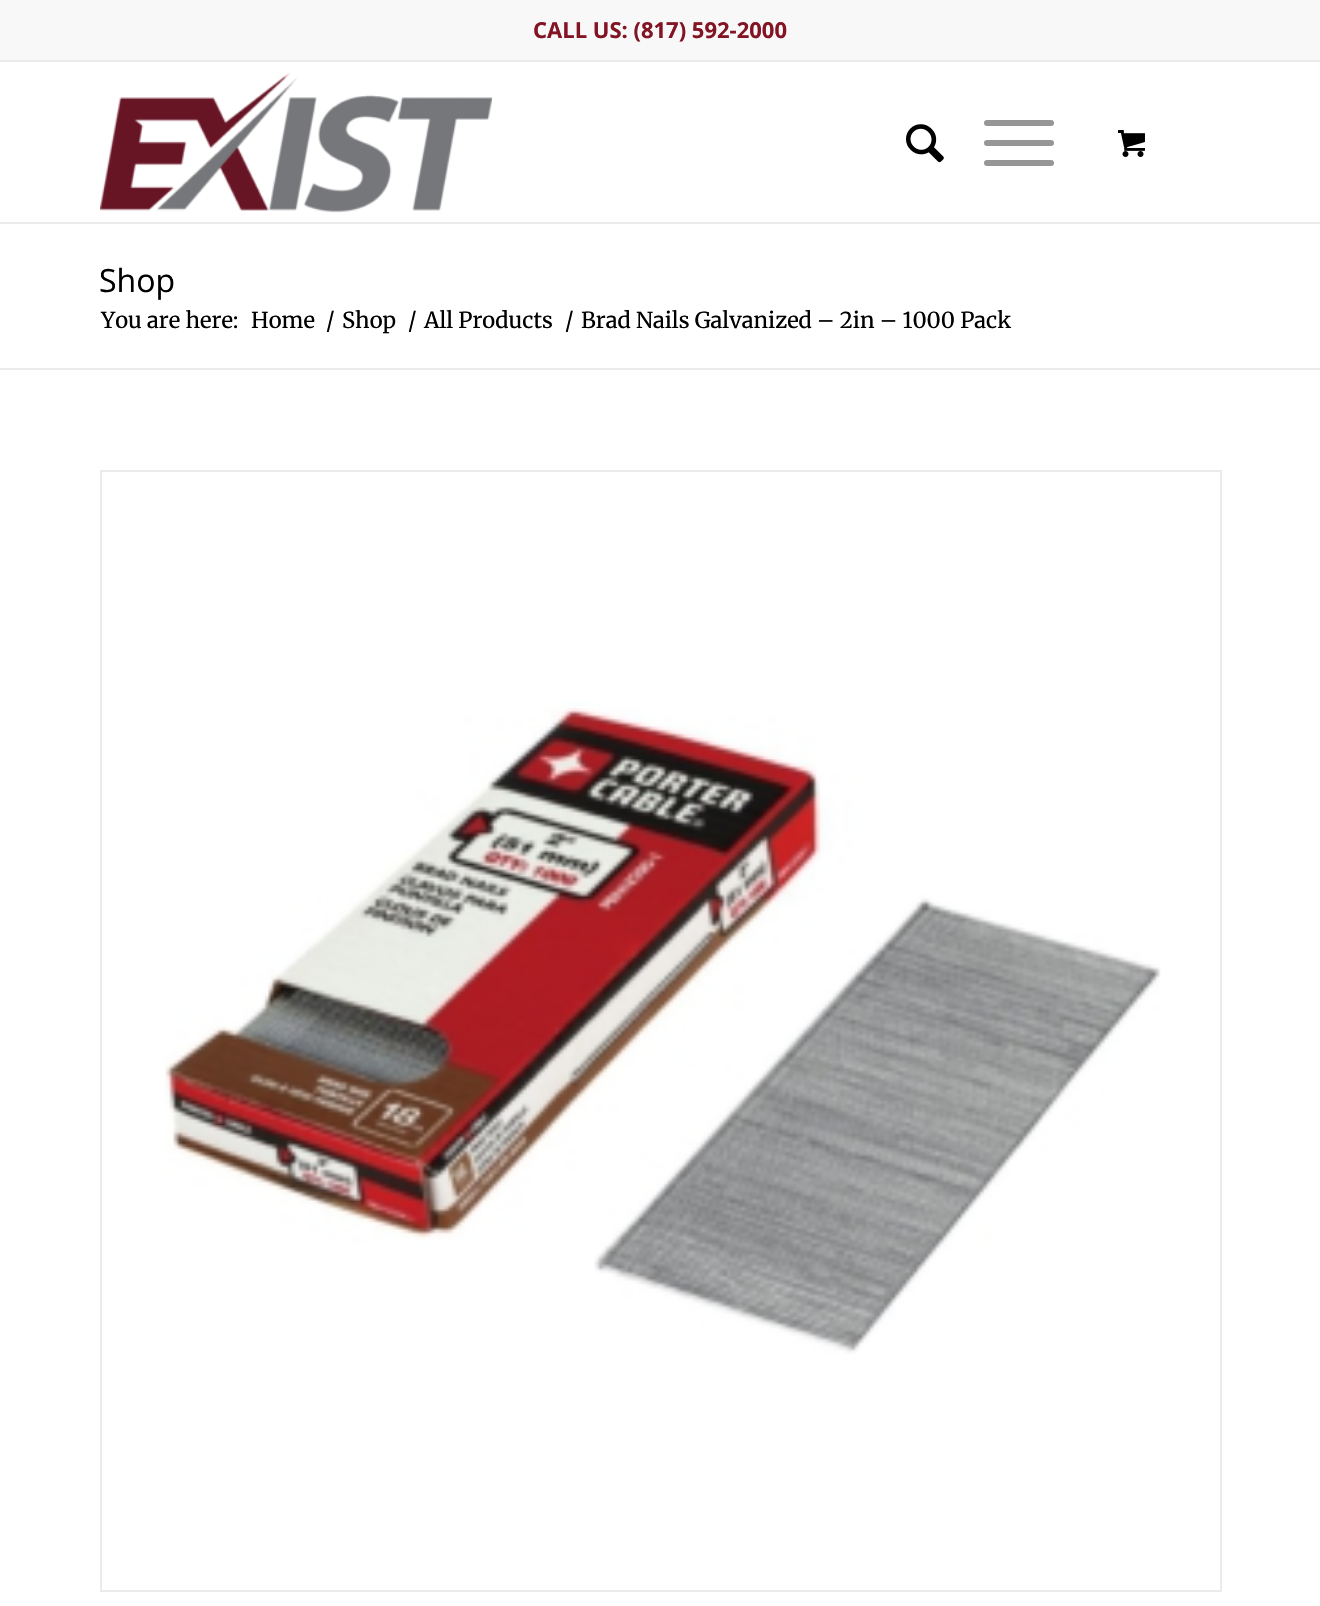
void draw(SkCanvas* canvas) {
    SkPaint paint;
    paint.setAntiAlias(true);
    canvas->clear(0xFFFFFFFF);
    paint.setColor(0xFFF8F8F8);
    canvas->drawRect(SkRect::MakeXYWH(0, 0, 1320, 60), paint);
    paint.setColor(0xFFEBEBEB);
    canvas->drawRect(SkRect::MakeXYWH(0, 60, 1320, 2), paint);
    SkFont font1(fontMgr->matchFamilyStyle("Open Sans", SkFontStyle::Bold()), 22);
    font1.setSubpixel(true);
    paint.setColor(0xFF821424);
    canvas->drawString("CALL US: (817) 592-2000", 533, 38, font1, paint);
    paint.setColor(0xFFEBEBEB);
    canvas->drawRect(SkRect::MakeXYWH(0, 222, 1320, 2), paint);
    canvas->drawImageRect(SkImages::DeferredFromEncodedData(SkData::MakeFromFileName("img1.png")), SkRect::MakeXYWH(100, 72, 392, 141), SkSamplingOptions());
    canvas->drawImageRect(SkImages::DeferredFromEncodedData(SkData::MakeFromFileName("img2.png")), SkRect::MakeXYWH(906, 124, 38, 39), SkSamplingOptions());
    paint.setColor(0xFF969696);
    canvas->drawRoundRect(SkRect::MakeXYWH(984, 140, 70, 6), 3, 3, paint);
    canvas->drawRoundRect(SkRect::MakeXYWH(984, 120, 70, 6), 3, 3, paint);
    canvas->drawRoundRect(SkRect::MakeXYWH(984, 160, 70, 6), 3, 3, paint);
    canvas->drawImageRect(SkImages::DeferredFromEncodedData(SkData::MakeFromFileName("img3.png")), SkRect::MakeXYWH(1118, 130, 27, 27), SkSamplingOptions());
    SkFont font2(fontMgr->matchFamilyStyle("Open Sans", SkFontStyle::Normal()), 32);
    font2.setSubpixel(true);
    paint.setColor(0xFF000000);
    canvas->drawString("Shop", 99, 292, font2, paint);
    SkFont font3(fontMgr->matchFamilyStyle("Merriweather", SkFontStyle::Normal()), 22);
    font3.setSubpixel(true);
    canvas->drawString("You are here:", 101, 328, font3, paint);
    canvas->drawString("Home", 251, 328, font3, paint);
    canvas->drawString("/", 326, 328, font3, paint);
    canvas->drawString("Shop", 342, 328, font3, paint);
    canvas->drawString("/", 408, 328, font3, paint);
    canvas->drawString("All Products", 424, 328, font3, paint);
    canvas->drawString("/", 565, 328, font3, paint);
    canvas->drawString("Brad Nails Galvanized – 2in – 1000 Pack", 581, 328, font3, paint);
    paint.setColor(0xFFEBEBEB);
    canvas->drawRect(SkRect::MakeXYWH(0, 368, 1320, 2), paint);
    paint.setStyle(SkPaint::kStroke_Style);
    paint.setStrokeWidth(2);
    canvas->drawRect(SkRect::MakeXYWH(101, 471, 1120, 1120), paint);
    canvas->drawImageRect(SkImages::DeferredFromEncodedData(SkData::MakeFromFileName("img4.png")), SkRect::MakeXYWH(164, 702, 997, 652), SkSamplingOptions());
}
